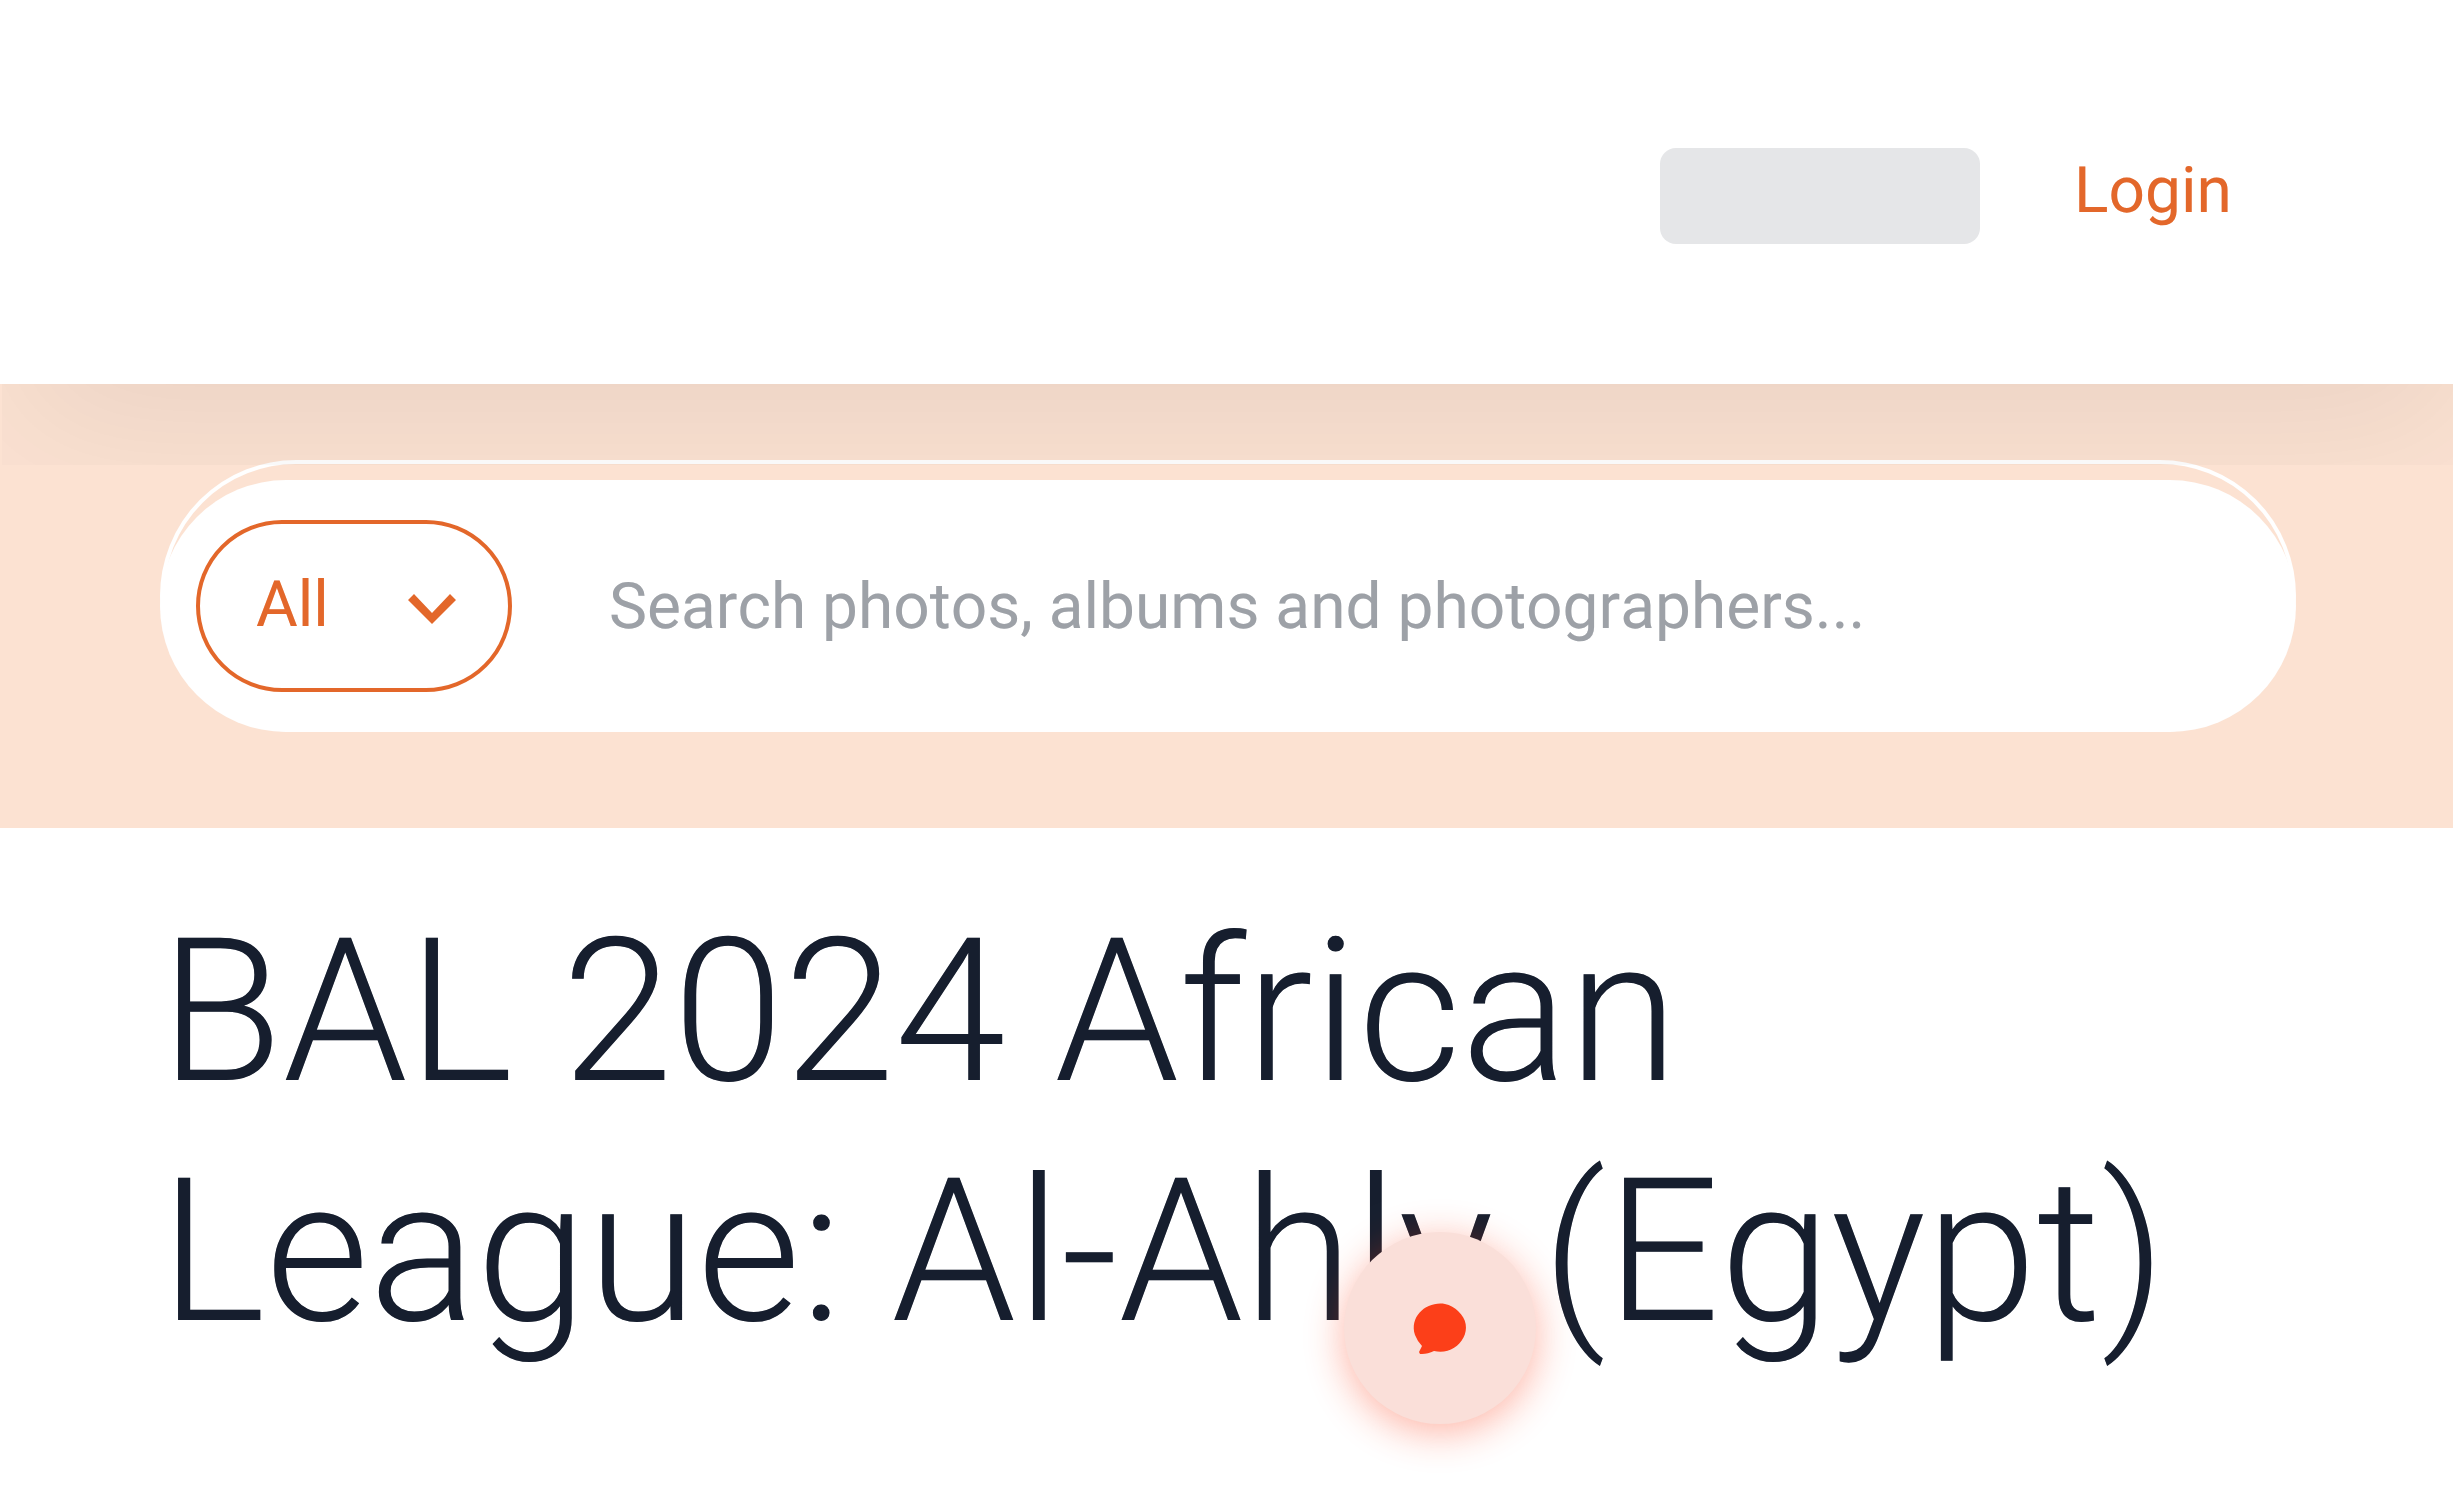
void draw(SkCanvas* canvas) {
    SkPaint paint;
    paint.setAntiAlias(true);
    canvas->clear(0xFFFFFFFF);
    paint.setColor(0xFFFCE2D2);
    canvas->drawRect(SkRect::MakeXYWH(0, 384, 2453, 444), paint);
    paint.setColor(0xFFFFFFFF);
    canvas->drawRoundRect(SkRect::MakeXYWH(160, 480, 2136, 252), 126, 126, paint);
    paint.setStyle(SkPaint::kStroke_Style);
    paint.setStrokeWidth(4);
    paint.setColor(0xFFE3672A);
    canvas->drawRoundRect(SkRect::MakeXYWH(198, 522, 312, 168), 84, 84, paint);
    paint.setStyle(SkPaint::kFill_Style);
    canvas->drawPath(SkPathBuilder().moveTo(414, 594).lineTo(432, 613).lineTo(450, 594).lineTo(456, 600).lineTo(432, 624).lineTo(408, 600).close().detach(), paint);
    paint.setStyle(SkPaint::kStroke_Style);
    paint.setColor(0xFFFFFFFF);
    canvas->drawRoundRect(SkRect::MakeXYWH(162, 462, 2132, 268), 134, 134, paint);
    canvas->save();
    canvas->clipRect(SkRect::MakeXYWH(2, 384, 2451, 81));
    paint.setStyle(SkPaint::kFill_Style);
    paint.setColor(0x12000000);
    paint.setMaskFilter(SkMaskFilter::MakeBlur(kNormal_SkBlurStyle, 73));
    canvas->drawRect(SkRect::MakeXYWH(20, 60, 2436, 364), paint);
    paint.setMaskFilter(nullptr);
    canvas->restore();
    paint.setColor(0xFFE5E6E8);
    canvas->drawRoundRect(SkRect::MakeXYWH(1660, 148, 320, 96), 16, 16, paint);
    SkFont font1(fontMgr->matchFamilyStyle("Roboto", SkFontStyle::Normal()), 64);
    font1.setSubpixel(true);
    paint.setColor(0xFFE3672A);
    canvas->drawString("Login", 2074, 212, font1, paint);
    canvas->drawString("All", 256, 626, font1, paint);
    paint.setColor(0xFF9DA1A7);
    canvas->drawString("Search photos, albums and photographers...", 609, 628, font1, paint);
    SkFont font2(fontMgr->matchFamilyStyle("Roboto", SkFontStyle(300, SkFontStyle::kNormal_Width, SkFontStyle::kUpright_Slant)), 200);
    font2.setSubpixel(true);
    paint.setColor(0xFF161E2E);
    canvas->drawString("BAL 2024 African", 160, 1080, font2, paint);
    canvas->drawString("League: Al-Ahly (Egypt)", 160, 1320, font2, paint);
    paint.setColor(0x66FC3F19);
    paint.setMaskFilter(SkMaskFilter::MakeBlur(kNormal_SkBlurStyle, 20));
    canvas->drawRoundRect(SkRect::MakeXYWH(1344, 1240, 192, 192), 96, 96, paint);
    paint.setMaskFilter(nullptr);
    paint.setColor(0xFFFADFD9);
    canvas->drawCircle(1440, 1328, 96, paint);
    paint.setColor(0xFFFC3F19);
    canvas->drawPath(SkPathBuilder(SkPathFillType::kEvenOdd).moveTo(1422, 1354).lineTo(1420, 1354).lineTo(1419, 1352).lineTo(1422, 1346).lineTo(1418, 1341).lineTo(1415, 1335).cubicTo(1409, 1316, 1427, 1301, 1445, 1304).cubicTo(1450, 1305, 1455, 1308, 1458, 1311).cubicTo(1478, 1329, 1457, 1357, 1434, 1351).cubicTo(1430, 1353, 1426, 1354, 1422, 1354).close().detach(), paint);
}
